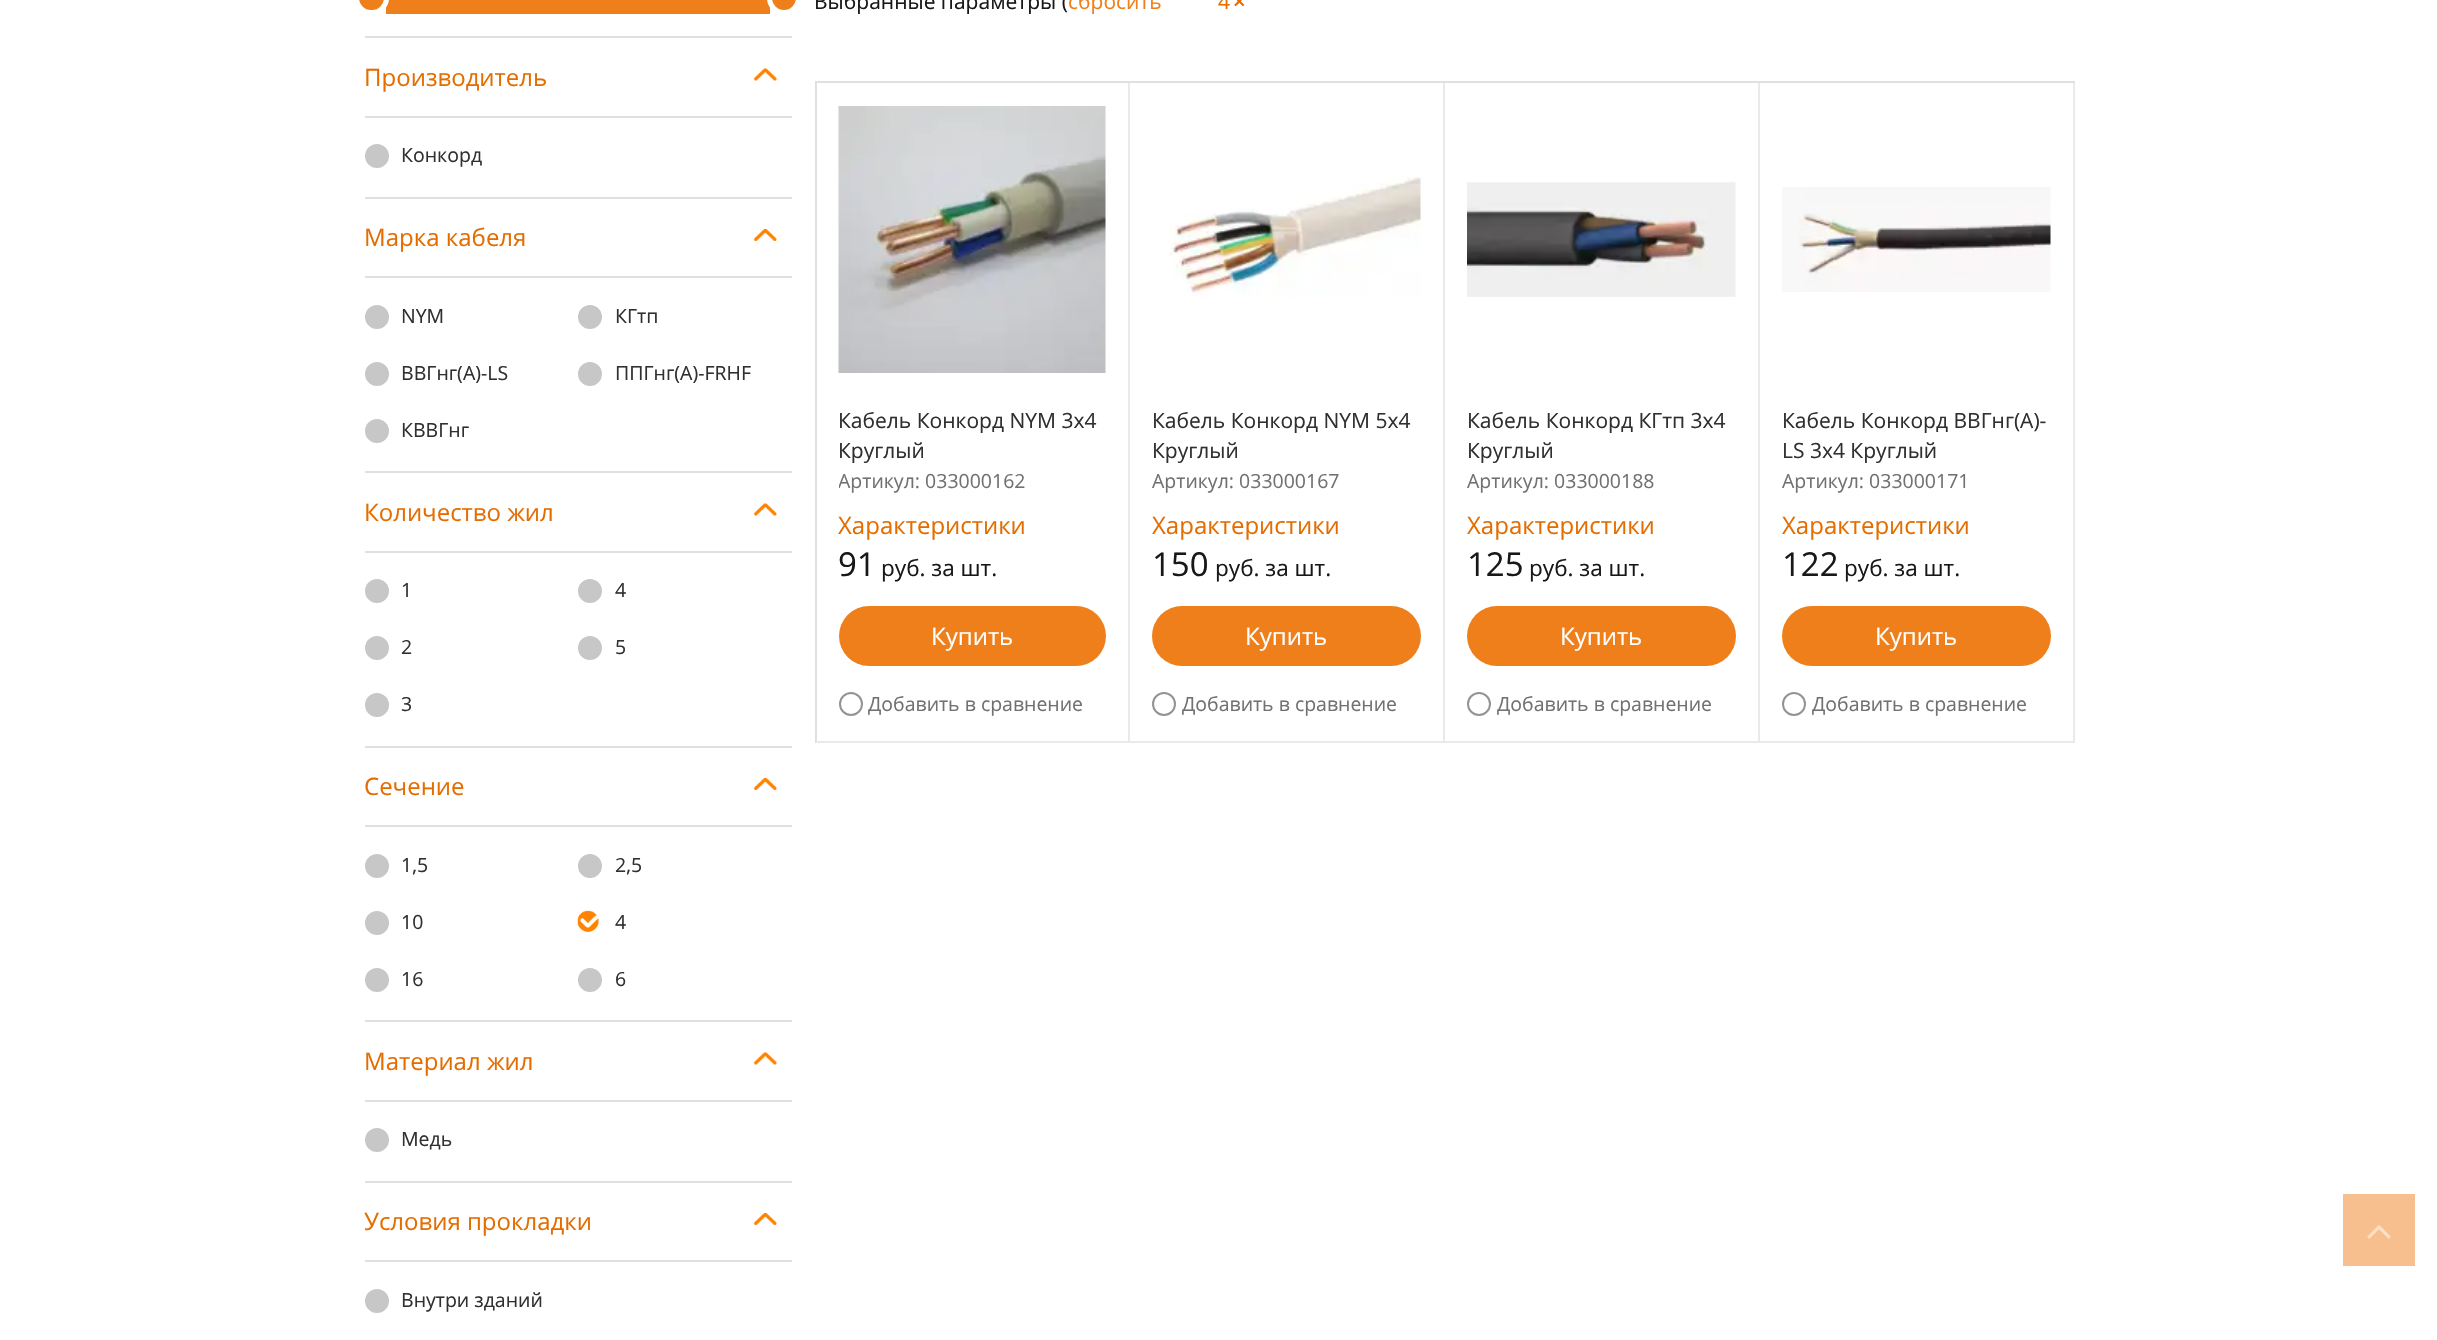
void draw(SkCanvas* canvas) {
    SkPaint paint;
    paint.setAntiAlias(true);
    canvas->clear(0xFFFFFFFF);
    paint.setColor(0xFFEF7F1A);
    canvas->drawRect(SkRect::MakeXYWH(386, 0, 384, 14), paint);
    canvas->drawRoundRect(SkRect::MakeXYWH(356.5f, -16.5f, 30, 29), 14.5f, 14.5f, paint);
    paint.setStyle(SkPaint::kStroke_Style);
    paint.setStrokeWidth(5);
    paint.setColor(0xFFFFFFFF);
    canvas->drawRoundRect(SkRect::MakeXYWH(356.5f, -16.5f, 30, 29), 14.5f, 14.5f, paint);
    paint.setStyle(SkPaint::kFill_Style);
    paint.setColor(0xFFEF7F1A);
    canvas->drawCircle(784, -2, 14.5f, paint);
    paint.setStyle(SkPaint::kStroke_Style);
    paint.setColor(0xFFFFFFFF);
    canvas->drawCircle(784, -2, 14.5f, paint);
    paint.setStyle(SkPaint::kFill_Style);
    paint.setColor(0xFFE0E0E0);
    canvas->drawRect(SkRect::MakeXYWH(365, 36, 427, 2), paint);
    SkFont font1(fontMgr->matchFamilyStyle("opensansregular", SkFontStyle::Normal()), 24);
    font1.setSubpixel(true);
    paint.setColor(0xFFE56D00);
    canvas->drawString("Производитель", 364, 86, font1, paint);
    canvas->drawImageRect(SkImages::DeferredFromEncodedData(SkData::MakeFromFileName("img1.png")), SkRect::MakeXYWH(753, 68, 24, 13), SkSamplingOptions());
    paint.setColor(0xFFE0E0E0);
    canvas->drawRect(SkRect::MakeXYWH(365, 116, 427, 2), paint);
    paint.setColor(0xFFC7C7C7);
    canvas->drawCircle(377, 156, 11, paint);
    paint.setStyle(SkPaint::kStroke_Style);
    paint.setStrokeWidth(2);
    canvas->drawCircle(377, 156, 11, paint);
    SkFont font2(fontMgr->matchFamilyStyle("opensansregular", SkFontStyle::Normal()), 19.5f);
    font2.setSubpixel(true);
    paint.setStyle(SkPaint::kFill_Style);
    paint.setColor(0xFF303030);
    canvas->drawString("Конкорд", 401, 162, font2, paint);
    paint.setColor(0xFFE0E0E0);
    canvas->drawRect(SkRect::MakeXYWH(365, 197, 427, 2), paint);
    paint.setColor(0xFFE56D00);
    canvas->drawString("Марка кабеля", 364, 246, font1, paint);
    canvas->drawImageRect(SkImages::DeferredFromEncodedData(SkData::MakeFromFileName("img2.png")), SkRect::MakeXYWH(753, 229, 24, 13), SkSamplingOptions());
    paint.setColor(0xFFE0E0E0);
    canvas->drawRect(SkRect::MakeXYWH(365, 276, 427, 2), paint);
    paint.setColor(0xFFC7C7C7);
    canvas->drawCircle(377, 317, 11, paint);
    paint.setStyle(SkPaint::kStroke_Style);
    canvas->drawCircle(377, 317, 11, paint);
    paint.setStyle(SkPaint::kFill_Style);
    paint.setColor(0xFF303030);
    canvas->drawString("NYM", 401, 323, font2, paint);
    paint.setColor(0xFFC7C7C7);
    canvas->drawCircle(377, 374, 11, paint);
    paint.setStyle(SkPaint::kStroke_Style);
    canvas->drawCircle(377, 374, 11, paint);
    paint.setStyle(SkPaint::kFill_Style);
    paint.setColor(0xFF303030);
    canvas->drawString("ВВГнг(А)-LS", 401, 380, font2, paint);
    paint.setColor(0xFFC7C7C7);
    canvas->drawCircle(377, 431, 11, paint);
    paint.setStyle(SkPaint::kStroke_Style);
    canvas->drawCircle(377, 431, 11, paint);
    paint.setStyle(SkPaint::kFill_Style);
    paint.setColor(0xFF303030);
    canvas->drawString("КВВГнг", 401, 437, font2, paint);
    paint.setColor(0xFFC7C7C7);
    canvas->drawCircle(590, 317, 11, paint);
    paint.setStyle(SkPaint::kStroke_Style);
    canvas->drawCircle(590, 317, 11, paint);
    paint.setStyle(SkPaint::kFill_Style);
    paint.setColor(0xFF303030);
    canvas->drawString("КГтп", 615, 323, font2, paint);
    paint.setColor(0xFFC7C7C7);
    canvas->drawCircle(590, 374, 11, paint);
    paint.setStyle(SkPaint::kStroke_Style);
    canvas->drawCircle(590, 374, 11, paint);
    paint.setStyle(SkPaint::kFill_Style);
    paint.setColor(0xFF303030);
    canvas->drawString("ППГнг(А)-FRHF", 615, 380, font2, paint);
    paint.setColor(0xFFE0E0E0);
    canvas->drawRect(SkRect::MakeXYWH(365, 471, 427, 2), paint);
    paint.setColor(0xFFE56D00);
    canvas->drawString("Количество жил", 364, 521, font1, paint);
    canvas->drawImageRect(SkImages::DeferredFromEncodedData(SkData::MakeFromFileName("img1.png")), SkRect::MakeXYWH(753, 503, 24, 13), SkSamplingOptions());
    paint.setColor(0xFFE0E0E0);
    canvas->drawRect(SkRect::MakeXYWH(365, 551, 427, 2), paint);
    paint.setColor(0xFFC7C7C7);
    canvas->drawCircle(377, 591, 11, paint);
    paint.setStyle(SkPaint::kStroke_Style);
    canvas->drawCircle(377, 591, 11, paint);
    paint.setStyle(SkPaint::kFill_Style);
    paint.setColor(0xFF303030);
    canvas->drawString("1", 401, 597, font2, paint);
    paint.setColor(0xFFC7C7C7);
    canvas->drawCircle(377, 648, 11, paint);
    paint.setStyle(SkPaint::kStroke_Style);
    canvas->drawCircle(377, 648, 11, paint);
    paint.setStyle(SkPaint::kFill_Style);
    paint.setColor(0xFF303030);
    canvas->drawString("2", 401, 654, font2, paint);
    paint.setColor(0xFFC7C7C7);
    canvas->drawCircle(377, 705, 11, paint);
    paint.setStyle(SkPaint::kStroke_Style);
    canvas->drawCircle(377, 705, 11, paint);
    paint.setStyle(SkPaint::kFill_Style);
    paint.setColor(0xFF303030);
    canvas->drawString("3", 401, 711, font2, paint);
    paint.setColor(0xFFC7C7C7);
    canvas->drawCircle(590, 591, 11, paint);
    paint.setStyle(SkPaint::kStroke_Style);
    canvas->drawCircle(590, 591, 11, paint);
    paint.setStyle(SkPaint::kFill_Style);
    paint.setColor(0xFF303030);
    canvas->drawString("4", 615, 597, font2, paint);
    paint.setColor(0xFFC7C7C7);
    canvas->drawCircle(590, 648, 11, paint);
    paint.setStyle(SkPaint::kStroke_Style);
    canvas->drawCircle(590, 648, 11, paint);
    paint.setStyle(SkPaint::kFill_Style);
    paint.setColor(0xFF303030);
    canvas->drawString("5", 615, 654, font2, paint);
    paint.setColor(0xFFE0E0E0);
    canvas->drawRect(SkRect::MakeXYWH(365, 746, 427, 2), paint);
    paint.setColor(0xFFE56D00);
    canvas->drawString("Сечение", 364, 795, font1, paint);
    canvas->drawImageRect(SkImages::DeferredFromEncodedData(SkData::MakeFromFileName("img2.png")), SkRect::MakeXYWH(753, 778, 24, 13), SkSamplingOptions());
    paint.setColor(0xFFE0E0E0);
    canvas->drawRect(SkRect::MakeXYWH(365, 825, 427, 2), paint);
    paint.setColor(0xFFC7C7C7);
    canvas->drawCircle(377, 866, 11, paint);
    paint.setStyle(SkPaint::kStroke_Style);
    canvas->drawCircle(377, 866, 11, paint);
    paint.setStyle(SkPaint::kFill_Style);
    paint.setColor(0xFF303030);
    canvas->drawString("1,5", 401, 872, font2, paint);
    paint.setColor(0xFFC7C7C7);
    canvas->drawCircle(377, 923, 11, paint);
    paint.setStyle(SkPaint::kStroke_Style);
    canvas->drawCircle(377, 923, 11, paint);
    paint.setStyle(SkPaint::kFill_Style);
    paint.setColor(0xFF303030);
    canvas->drawString("10", 401, 929, font2, paint);
    paint.setColor(0xFFC7C7C7);
    canvas->drawCircle(377, 980, 11, paint);
    paint.setStyle(SkPaint::kStroke_Style);
    canvas->drawCircle(377, 980, 11, paint);
    paint.setStyle(SkPaint::kFill_Style);
    paint.setColor(0xFF303030);
    canvas->drawString("16", 401, 986, font2, paint);
    paint.setColor(0xFFC7C7C7);
    canvas->drawCircle(590, 866, 11, paint);
    paint.setStyle(SkPaint::kStroke_Style);
    canvas->drawCircle(590, 866, 11, paint);
    paint.setStyle(SkPaint::kFill_Style);
    paint.setColor(0xFF303030);
    canvas->drawString("2,5", 615, 872, font2, paint);
    canvas->drawImageRect(SkImages::DeferredFromEncodedData(SkData::MakeFromFileName("img3.png")), SkRect::MakeXYWH(577, 910, 22, 22), SkSamplingOptions());
    canvas->drawString("4", 615, 929, font2, paint);
    paint.setColor(0xFFC7C7C7);
    canvas->drawCircle(590, 980, 11, paint);
    paint.setStyle(SkPaint::kStroke_Style);
    canvas->drawCircle(590, 980, 11, paint);
    paint.setStyle(SkPaint::kFill_Style);
    paint.setColor(0xFF303030);
    canvas->drawString("6", 615, 986, font2, paint);
    paint.setColor(0xFFE0E0E0);
    canvas->drawRect(SkRect::MakeXYWH(365, 1020, 427, 2), paint);
    paint.setColor(0xFFE56D00);
    canvas->drawString("Материал жил", 364, 1070, font1, paint);
    canvas->drawImageRect(SkImages::DeferredFromEncodedData(SkData::MakeFromFileName("img1.png")), SkRect::MakeXYWH(753, 1052, 24, 13), SkSamplingOptions());
    paint.setColor(0xFFE0E0E0);
    canvas->drawRect(SkRect::MakeXYWH(365, 1100, 427, 2), paint);
    paint.setColor(0xFFC7C7C7);
    canvas->drawCircle(377, 1140, 11, paint);
    paint.setStyle(SkPaint::kStroke_Style);
    canvas->drawCircle(377, 1140, 11, paint);
    paint.setStyle(SkPaint::kFill_Style);
    paint.setColor(0xFF303030);
    canvas->drawString("Медь", 401, 1146, font2, paint);
    paint.setColor(0xFFE0E0E0);
    canvas->drawRect(SkRect::MakeXYWH(365, 1181, 427, 2), paint);
    paint.setColor(0xFFE56D00);
    canvas->drawString("Условия прокладки", 364, 1230, font1, paint);
    canvas->drawImageRect(SkImages::DeferredFromEncodedData(SkData::MakeFromFileName("img2.png")), SkRect::MakeXYWH(753, 1213, 24, 13), SkSamplingOptions());
    paint.setColor(0xFFE0E0E0);
    canvas->drawRect(SkRect::MakeXYWH(365, 1260, 427, 2), paint);
    paint.setColor(0xFFC7C7C7);
    canvas->drawCircle(377, 1301, 11, paint);
    paint.setStyle(SkPaint::kStroke_Style);
    canvas->drawCircle(377, 1301, 11, paint);
    paint.setStyle(SkPaint::kFill_Style);
    paint.setColor(0xFF303030);
    canvas->drawString("Внутри зданий", 401, 1307, font2, paint);
    SkFont font3(fontMgr->matchFamilyStyle("opensansregular", SkFontStyle::Normal()), 21);
    font3.setSubpixel(true);
    paint.setColor(0xFF181818);
    canvas->drawString("Выбранные параметры (", 814, 9, font3, paint);
    paint.setColor(0xFFEF7F1A);
    canvas->drawString("cбросить", 1068, 9, font3, paint);
    paint.setColor(0xFFE56D00);
    canvas->drawString("4", 1218, 9, font3, paint);
    SkFont font4(fontMgr->matchFamilyStyle("opensansregular", SkFontStyle::Bold()), 21);
    font4.setSubpixel(true);
    canvas->drawString("×", 1233, 9, font4, paint);
    paint.setColor(0xFFE0E0E0);
    canvas->drawRect(SkRect::MakeXYWH(815, 81, 1260, 2), paint);
    canvas->drawRect(SkRect::MakeXYWH(815, 81, 2, 662), paint);
    paint.setColor(0xFFE9EAEC);
    canvas->drawRect(SkRect::MakeXYWH(1128, 83, 2, 660), paint);
    canvas->drawRect(SkRect::MakeXYWH(816, 741, 314, 2), paint);
    canvas->drawImageRect(SkImages::DeferredFromEncodedData(SkData::MakeFromFileName("img4.png")), SkRect::MakeXYWH(838, 106, 268, 267), SkSamplingOptions());
    paint.setColor(0xFF303030);
    canvas->drawString("Кабель Конкорд NYM 3x4", 838, 428, font3, paint);
    canvas->drawString("Круглый", 838, 458, font3, paint);
    canvas->save();
    canvas->clipRect(SkRect::MakeXYWH(839, 405, 267, 90));
    paint.setColor(0xFF717171);
    canvas->drawString("Артикул: 033000162", 838, 488, font2, paint);
    canvas->restore();
    paint.setColor(0xFFE56D00);
    canvas->drawString("Характеристики", 838, 534, font1, paint);
    SkFont font5(fontMgr->matchFamilyStyle("opensansregular", SkFontStyle::Normal()), 33);
    font5.setSubpixel(true);
    paint.setColor(0xFF181818);
    canvas->drawString("91", 838, 576, font5, paint);
    SkFont font6(fontMgr->matchFamilyStyle("opensansregular", SkFontStyle::Normal()), 22.5f);
    font6.setSubpixel(true);
    canvas->drawString("руб. за шт.", 881, 576, font6, paint);
    paint.setColor(0xFFEF7F1A);
    canvas->drawRoundRect(SkRect::MakeXYWH(839, 606, 267, 60), 30, 30, paint);
    paint.setColor(0xFFFFFFFF);
    canvas->drawString("Купить", 931, 645, font1, paint);
    paint.setStyle(SkPaint::kStroke_Style);
    paint.setColor(0xFF939393);
    canvas->drawCircle(851, 704, 11, paint);
    paint.setStyle(SkPaint::kFill_Style);
    paint.setColor(0xFF717171);
    canvas->drawString("Добавить в сравнение", 868, 711, font2, paint);
    paint.setColor(0xFFE9EAEC);
    canvas->drawRect(SkRect::MakeXYWH(1443, 83, 2, 660), paint);
    canvas->drawRect(SkRect::MakeXYWH(1130, 741, 315, 2), paint);
    canvas->drawImageRect(SkImages::DeferredFromEncodedData(SkData::MakeFromFileName("img5.png")), SkRect::MakeXYWH(1169, 177, 252, 120), SkSamplingOptions());
    paint.setColor(0xFF303030);
    canvas->drawString("Кабель Конкорд NYM 5x4", 1152, 428, font3, paint);
    canvas->drawString("Круглый", 1152, 458, font3, paint);
    paint.setColor(0xFF717171);
    canvas->drawString("Артикул: 033000167", 1152, 488, font2, paint);
    paint.setColor(0xFFE56D00);
    canvas->drawString("Характеристики", 1152, 534, font1, paint);
    paint.setColor(0xFF181818);
    canvas->drawString("150", 1152, 576, font5, paint);
    canvas->drawString("руб. за шт.", 1215, 576, font6, paint);
    paint.setColor(0xFFEF7F1A);
    canvas->drawRoundRect(SkRect::MakeXYWH(1152, 606, 269, 60), 30, 30, paint);
    paint.setColor(0xFFFFFFFF);
    canvas->drawString("Купить", 1245, 645, font1, paint);
    paint.setStyle(SkPaint::kStroke_Style);
    paint.setColor(0xFF939393);
    canvas->drawCircle(1164, 704, 11, paint);
    paint.setStyle(SkPaint::kFill_Style);
    paint.setColor(0xFF717171);
    canvas->drawString("Добавить в сравнение", 1182, 711, font2, paint);
    paint.setColor(0xFFE9EAEC);
    canvas->drawRect(SkRect::MakeXYWH(1758, 83, 2, 660), paint);
    canvas->drawRect(SkRect::MakeXYWH(1445, 741, 315, 2), paint);
    canvas->drawImageRect(SkImages::DeferredFromEncodedData(SkData::MakeFromFileName("img6.png")), SkRect::MakeXYWH(1467, 182, 269, 115), SkSamplingOptions());
    paint.setColor(0xFF303030);
    canvas->drawString("Кабель Конкорд КГтп 3x4", 1467, 428, font3, paint);
    canvas->drawString("Круглый", 1467, 458, font3, paint);
    paint.setColor(0xFF717171);
    canvas->drawString("Артикул: 033000188", 1467, 488, font2, paint);
    paint.setColor(0xFFE56D00);
    canvas->drawString("Характеристики", 1467, 534, font1, paint);
    paint.setColor(0xFF181818);
    canvas->drawString("125", 1467, 576, font5, paint);
    canvas->drawString("руб. за шт.", 1529, 576, font6, paint);
    paint.setColor(0xFFEF7F1A);
    canvas->drawRoundRect(SkRect::MakeXYWH(1467, 606, 269, 60), 30, 30, paint);
    paint.setColor(0xFFFFFFFF);
    canvas->drawString("Купить", 1560, 645, font1, paint);
    paint.setStyle(SkPaint::kStroke_Style);
    paint.setColor(0xFF939393);
    canvas->drawCircle(1479, 704, 11, paint);
    paint.setStyle(SkPaint::kFill_Style);
    paint.setColor(0xFF717171);
    canvas->drawString("Добавить в сравнение", 1497, 711, font2, paint);
    paint.setColor(0xFFE9EAEC);
    canvas->drawRect(SkRect::MakeXYWH(2073, 83, 2, 660), paint);
    canvas->drawRect(SkRect::MakeXYWH(1760, 741, 315, 2), paint);
    canvas->drawImageRect(SkImages::DeferredFromEncodedData(SkData::MakeFromFileName("img7.png")), SkRect::MakeXYWH(1782, 187, 269, 105), SkSamplingOptions());
    paint.setColor(0xFF303030);
    canvas->drawString("Кабель Конкорд ВВГнг(А)-", 1782, 428, font3, paint);
    canvas->drawString("LS 3x4 Круглый", 1782, 458, font3, paint);
    paint.setColor(0xFF717171);
    canvas->drawString("Артикул: 033000171", 1782, 488, font2, paint);
    paint.setColor(0xFFE56D00);
    canvas->drawString("Характеристики", 1782, 534, font1, paint);
    paint.setColor(0xFF181818);
    canvas->drawString("122", 1782, 576, font5, paint);
    canvas->drawString("руб. за шт.", 1844, 576, font6, paint);
    paint.setColor(0xFFEF7F1A);
    canvas->drawRoundRect(SkRect::MakeXYWH(1782, 606, 269, 60), 30, 30, paint);
    paint.setColor(0xFFFFFFFF);
    canvas->drawString("Купить", 1875, 645, font1, paint);
    paint.setStyle(SkPaint::kStroke_Style);
    paint.setColor(0xFF939393);
    canvas->drawCircle(1794, 704, 11, paint);
    paint.setStyle(SkPaint::kFill_Style);
    paint.setColor(0xFF717171);
    canvas->drawString("Добавить в сравнение", 1812, 711, font2, paint);
    paint.setColor(0xFFF7BF8D);
    canvas->drawRect(SkRect::MakeXYWH(2343, 1194, 72, 72), paint);
    canvas->drawImageRect(SkImages::DeferredFromEncodedData(SkData::MakeFromFileName("img8.png")), SkRect::MakeXYWH(2367, 1225, 24, 14), SkSamplingOptions());
}
